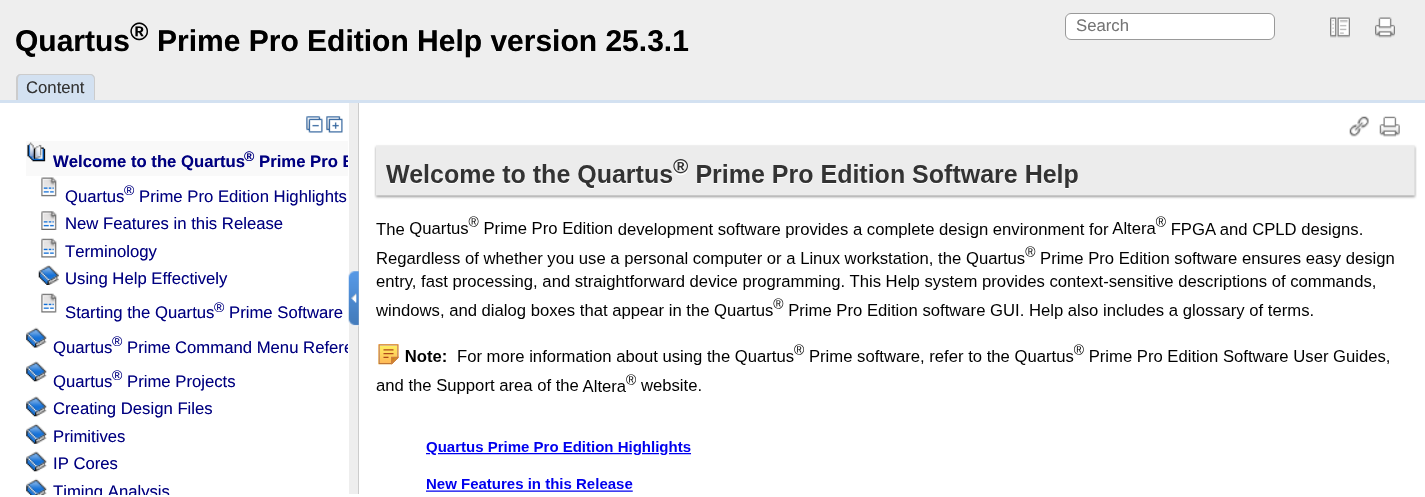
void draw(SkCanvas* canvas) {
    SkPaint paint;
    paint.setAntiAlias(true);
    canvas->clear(0xFFFFFFFF);
    paint.setColor(0xFFEEEEEE);
    canvas->drawRect(SkRect::MakeXYWH(0, 0, 1425, 100), paint);
    SkFont font1(fontMgr->matchFamilyStyle("Liberation Sans", SkFontStyle::Bold()), 30);
    font1.setSubpixel(true);
    paint.setColor(0xFF000000);
    canvas->drawString("Quartus", 15, 51, font1, paint);
    SkFont font2(fontMgr->matchFamilyStyle("Liberation Sans", SkFontStyle::Bold()), 25);
    font2.setSubpixel(true);
    canvas->drawString("®", 130, 40, font2, paint);
    canvas->drawString("Prime Pro Edition Help version 25.3.1", 157, 51, font1, paint);
    paint.setColor(0xFFFFFFFF);
    canvas->drawRoundRect(SkRect::MakeXYWH(1065.5f, 13.5f, 209, 26), 5.5f, 5.5f, paint);
    paint.setStyle(SkPaint::kStroke_Style);
    paint.setStrokeWidth(1);
    paint.setColor(0xFF999999);
    canvas->drawRoundRect(SkRect::MakeXYWH(1065.5f, 13.5f, 209, 26), 5.5f, 5.5f, paint);
    SkFont font3(fontMgr->matchFamilyStyle("Liberation Sans", SkFontStyle::Normal()), 16.7f);
    font3.setSubpixel(true);
    paint.setStyle(SkPaint::kFill_Style);
    paint.setColor(0xFF757575);
    canvas->drawString("Search", 1076, 31, font3, paint);
    canvas->drawImageRect(SkImages::DeferredFromEncodedData(SkData::MakeFromFileName("img1.png")), SkRect::MakeXYWH(1330, 17, 20, 21), SkSamplingOptions());
    canvas->drawImageRect(SkImages::DeferredFromEncodedData(SkData::MakeFromFileName("img2.png")), SkRect::MakeXYWH(1375, 17, 20, 21), SkSamplingOptions());
    paint.setColor(0xFFD3E1F1);
    canvas->drawPath(SkPathBuilder().moveTo(21, 74).lineTo(90, 74).cubicTo(93, 74, 95, 76, 95, 79).lineTo(95, 100).lineTo(16, 100).lineTo(16, 79).cubicTo(16, 76, 18, 74, 21, 74).close().detach(), paint);
    paint.setColor(0xFFCCCCCC);
    canvas->drawPath(SkPathBuilder(SkPathFillType::kEvenOdd).moveTo(21, 74).lineTo(90, 74).cubicTo(93, 74, 95, 76, 95, 79).lineTo(95, 100).lineTo(16, 100).lineTo(16, 79).cubicTo(16, 76, 18, 74, 21, 74).close().moveTo(21, 75).lineTo(90, 75).cubicTo(92, 75, 94, 77, 94, 79).lineTo(94, 100).lineTo(18, 100).lineTo(18, 79).cubicTo(18, 77, 19, 75, 21, 75).close().detach(), paint);
    paint.setColor(0xFF333333);
    canvas->drawString("Content", 26, 93, font3, paint);
    paint.setColor(0xFFD3E1F1);
    canvas->drawRect(SkRect::MakeXYWH(0, 100, 1425, 3), paint);
    canvas->drawImageRect(SkImages::DeferredFromEncodedData(SkData::MakeFromFileName("img3.png")), SkRect::MakeXYWH(306, 116, 17, 17), SkSamplingOptions());
    canvas->drawImageRect(SkImages::DeferredFromEncodedData(SkData::MakeFromFileName("img4.png")), SkRect::MakeXYWH(326, 116, 17, 17), SkSamplingOptions());
    paint.setColor(0xFFF9F9F9);
    canvas->drawRect(SkRect::MakeXYWH(26, 141, 322, 35), paint);
    canvas->drawImageRect(SkImages::DeferredFromEncodedData(SkData::MakeFromFileName("img5.png")), SkRect::MakeXYWH(27, 142, 19, 20), SkSamplingOptions());
    SkFont font4(fontMgr->matchFamilyStyle("Liberation Sans", SkFontStyle::Bold()), 16.7f);
    font4.setSubpixel(true);
    paint.setColor(0xFF000080);
    canvas->drawString("Welcome to the Quartus", 53, 167, font4, paint);
    SkFont font5(fontMgr->matchFamilyStyle("Liberation Sans", SkFontStyle::Bold()), 14);
    font5.setSubpixel(true);
    canvas->drawString("®", 244, 161, font5, paint);
    canvas->save();
    canvas->clipRect(SkRect::MakeXYWH(1, 104, 347, 391));
    canvas->drawString("Prime Pro E", 259, 167, font4, paint);
    canvas->restore();
    canvas->drawImageRect(SkImages::DeferredFromEncodedData(SkData::MakeFromFileName("img6.png")), SkRect::MakeXYWH(41, 177, 16, 20), SkSamplingOptions());
    canvas->drawString("Quartus", 65, 202, font3, paint);
    SkFont font6(fontMgr->matchFamilyStyle("Liberation Sans", SkFontStyle::Normal()), 14);
    font6.setSubpixel(true);
    canvas->drawString("®", 124, 195, font6, paint);
    canvas->drawString("Prime Pro Edition Highlights", 139, 202, font3, paint);
    canvas->drawImageRect(SkImages::DeferredFromEncodedData(SkData::MakeFromFileName("img7.png")), SkRect::MakeXYWH(41, 211, 16, 19), SkSamplingOptions());
    canvas->drawString("New Features in this Release", 65, 229, font3, paint);
    canvas->drawImageRect(SkImages::DeferredFromEncodedData(SkData::MakeFromFileName("img8.png")), SkRect::MakeXYWH(41, 238, 16, 20), SkSamplingOptions());
    canvas->drawString("Terminology", 65, 257, font3, paint);
    canvas->drawImageRect(SkImages::DeferredFromEncodedData(SkData::MakeFromFileName("img9.png")), SkRect::MakeXYWH(38, 265, 21, 20), SkSamplingOptions());
    canvas->drawString("Using Help Effectively", 65, 284, font3, paint);
    canvas->drawImageRect(SkImages::DeferredFromEncodedData(SkData::MakeFromFileName("img10.png")), SkRect::MakeXYWH(41, 293, 16, 20), SkSamplingOptions());
    canvas->drawString("Starting the Quartus", 65, 318, font3, paint);
    canvas->drawString("®", 214, 312, font6, paint);
    canvas->drawString("Prime Software", 229, 318, font3, paint);
    canvas->drawImageRect(SkImages::DeferredFromEncodedData(SkData::MakeFromFileName("img11.png")), SkRect::MakeXYWH(26, 327, 21, 21), SkSamplingOptions());
    canvas->drawString("Quartus", 53, 353, font3, paint);
    canvas->drawString("®", 112, 346, font6, paint);
    canvas->drawString("Prime", 127, 353, font3, paint);
    canvas->save();
    canvas->clipRect(SkRect::MakeXYWH(1, 104, 347, 391));
    canvas->drawString("Command Menu Refere", 175, 353, font3, paint);
    canvas->restore();
    canvas->drawImageRect(SkImages::DeferredFromEncodedData(SkData::MakeFromFileName("img12.png")), SkRect::MakeXYWH(26, 361, 21, 21), SkSamplingOptions());
    canvas->drawString("Quartus", 53, 387, font3, paint);
    canvas->drawString("®", 112, 380, font6, paint);
    canvas->drawString("Prime Projects", 127, 387, font3, paint);
    canvas->drawImageRect(SkImages::DeferredFromEncodedData(SkData::MakeFromFileName("img12.png")), SkRect::MakeXYWH(26, 396, 21, 21), SkSamplingOptions());
    canvas->drawString("Creating Design Files", 53, 414, font3, paint);
    canvas->drawImageRect(SkImages::DeferredFromEncodedData(SkData::MakeFromFileName("img13.png")), SkRect::MakeXYWH(26, 423, 21, 21), SkSamplingOptions());
    canvas->drawString("Primitives", 53, 442, font3, paint);
    canvas->drawImageRect(SkImages::DeferredFromEncodedData(SkData::MakeFromFileName("img12.png")), SkRect::MakeXYWH(26, 451, 21, 21), SkSamplingOptions());
    canvas->drawString("IP Cores", 53, 469, font3, paint);
    canvas->drawImageRect(SkImages::DeferredFromEncodedData(SkData::MakeFromFileName("img14.png")), SkRect::MakeXYWH(26, 478, 21, 17), SkSamplingOptions());
    canvas->save();
    canvas->clipRect(SkRect::MakeXYWH(1, 104, 347, 391));
    canvas->drawString("Timing Analysis", 53, 497, font3, paint);
    canvas->restore();
    paint.setColor(0xFFEEEEEE);
    canvas->drawRect(SkRect::MakeXYWH(349, 103, 9, 391), paint);
    paint.setColor(0xFFCCCCCC);
    canvas->drawRect(SkRect::MakeXYWH(358, 103, 1, 391), paint);
    canvas->drawImageRect(SkImages::DeferredFromEncodedData(SkData::MakeFromFileName("img15.png")), SkRect::MakeXYWH(348, 271, 11, 56), SkSamplingOptions());
    canvas->drawImageRect(SkImages::DeferredFromEncodedData(SkData::MakeFromFileName("img16.png")), SkRect::MakeXYWH(374, 116, 1043, 376), SkSamplingOptions());
}
